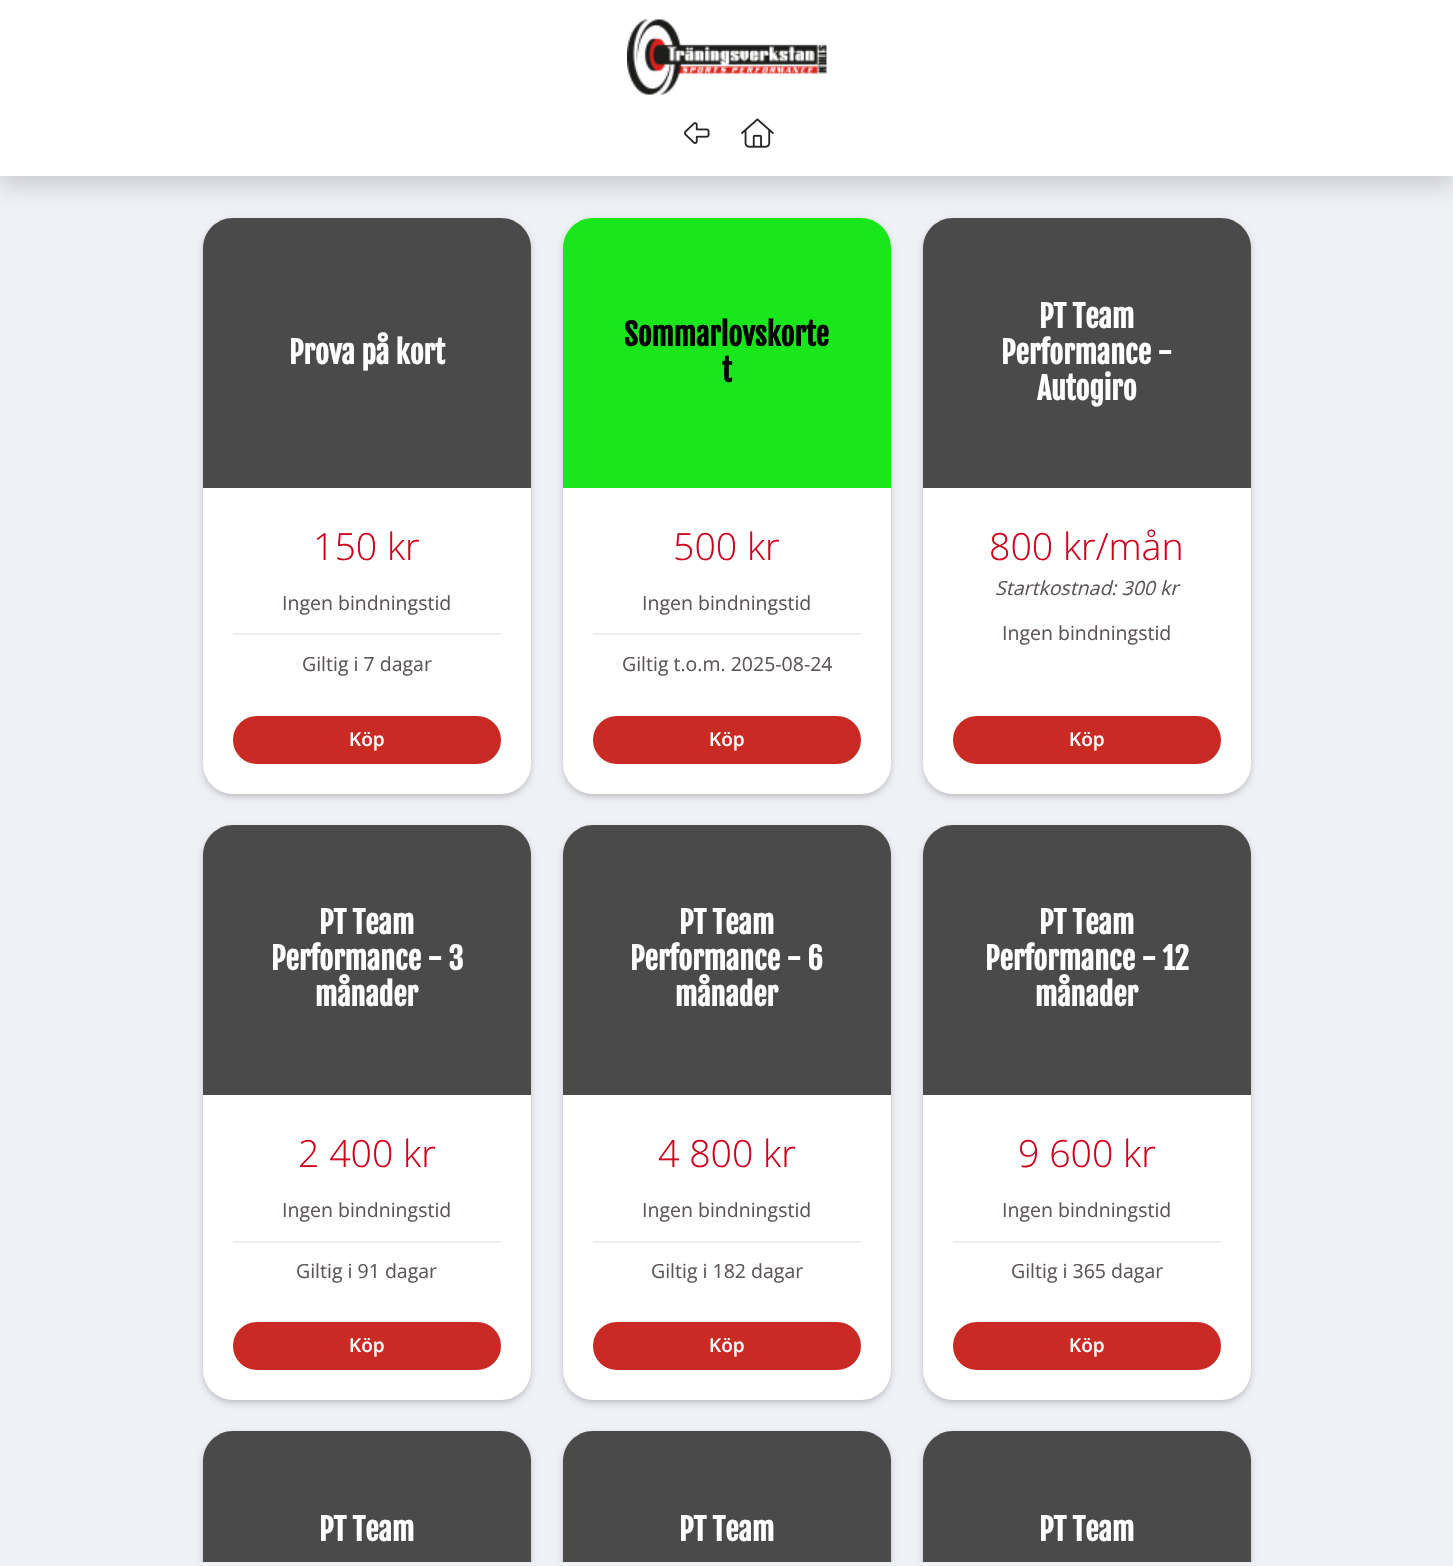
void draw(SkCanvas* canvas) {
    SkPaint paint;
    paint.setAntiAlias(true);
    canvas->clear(0xFFF0F1F7);
    paint.setColor(0x33000000);
    paint.setMaskFilter(SkMaskFilter::MakeBlur(kNormal_SkBlurStyle, 3));
    canvas->drawRoundRect(SkRect::MakeXYWH(203, 221, 328, 576), 30, 30, paint);
    paint.setMaskFilter(nullptr);
    paint.setColor(0xFFFFFFFF);
    canvas->drawRoundRect(SkRect::MakeXYWH(203, 218, 328, 576), 30, 30, paint);
    paint.setColor(0xFF4A4A4A);
    canvas->drawPath(SkPathBuilder().moveTo(233, 218).lineTo(501, 218).cubicTo(517.5f, 218, 531, 231.5f, 531, 248).lineTo(531, 488).lineTo(203, 488).lineTo(203, 248).cubicTo(203, 231.5f, 216.5f, 218, 233, 218).close().detach(), paint);
    paint.setColor(0x33000000);
    paint.setMaskFilter(SkMaskFilter::MakeBlur(kNormal_SkBlurStyle, 3));
    canvas->drawRoundRect(SkRect::MakeXYWH(563, 221, 328, 576), 30, 30, paint);
    paint.setMaskFilter(nullptr);
    paint.setColor(0xFFFFFFFF);
    canvas->drawRoundRect(SkRect::MakeXYWH(563, 218, 328, 576), 30, 30, paint);
    paint.setColor(0xFF1AE61C);
    canvas->drawPath(SkPathBuilder().moveTo(593, 218).lineTo(861, 218).cubicTo(877.5f, 218, 891, 231.5f, 891, 248).lineTo(891, 488).lineTo(563, 488).lineTo(563, 248).cubicTo(563, 231.5f, 576.5f, 218, 593, 218).close().detach(), paint);
    paint.setColor(0x33000000);
    paint.setMaskFilter(SkMaskFilter::MakeBlur(kNormal_SkBlurStyle, 3));
    canvas->drawRoundRect(SkRect::MakeXYWH(923, 221, 328, 576), 30, 30, paint);
    paint.setMaskFilter(nullptr);
    paint.setColor(0xFFFFFFFF);
    canvas->drawRoundRect(SkRect::MakeXYWH(923, 218, 328, 576), 30, 30, paint);
    paint.setColor(0xFF4A4A4A);
    canvas->drawPath(SkPathBuilder().moveTo(953, 218).lineTo(1221, 218).cubicTo(1237.5f, 218, 1251, 231.5f, 1251, 248).lineTo(1251, 488).lineTo(923, 488).lineTo(923, 248).cubicTo(923, 231.5f, 936.5f, 218, 953, 218).close().detach(), paint);
    paint.setColor(0x26000000);
    paint.setMaskFilter(SkMaskFilter::MakeBlur(kNormal_SkBlurStyle, 10.5f));
    canvas->drawRect(SkRect::MakeXYWH(0, 11, 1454, 175), paint);
    paint.setMaskFilter(nullptr);
    paint.setColor(0xFFFFFFFF);
    canvas->drawRect(SkRect::MakeXYWH(0, 0, 1453, 176), paint);
    canvas->drawImageRect(SkImages::DeferredFromEncodedData(SkData::MakeFromFileName("img1.png")), SkRect::MakeXYWH(627, 19, 200, 76), SkSamplingOptions());
    canvas->drawImageRect(SkImages::DeferredFromEncodedData(SkData::MakeFromFileName("img2.png")), SkRect::MakeXYWH(684, 122, 26, 22), SkSamplingOptions());
    canvas->drawImageRect(SkImages::DeferredFromEncodedData(SkData::MakeFromFileName("img3.png")), SkRect::MakeXYWH(741, 118, 33, 30), SkSamplingOptions());
    SkFont font1(fontMgr->matchFamilyStyle("Fjalla One", SkFontStyle::Bold()), 30);
    font1.setSubpixel(true);
    canvas->drawString("Prova på kort", 289, 364, font1, paint);
    SkFont font2(fontMgr->matchFamilyStyle("Open Sans", SkFontStyle(300, SkFontStyle::kNormal_Width, SkFontStyle::kUpright_Slant)), 37.5f);
    font2.setSubpixel(true);
    paint.setColor(0xFFD0021B);
    canvas->drawString("150 kr", 313, 560, font2, paint);
    paint.setColor(0xFFEEEEEE);
    canvas->drawRect(SkRect::MakeXYWH(233, 633, 268, 2), paint);
    SkFont font3(fontMgr->matchFamilyStyle("Open Sans", SkFontStyle::Normal()), 19.5f);
    font3.setSubpixel(true);
    paint.setColor(0xFF5E5556);
    canvas->drawString("Ingen bindningstid", 282, 610, font3, paint);
    canvas->drawString("Giltig i 7 dagar", 302, 671, font3, paint);
    paint.setColor(0xFFCA2A24);
    canvas->drawRoundRect(SkRect::MakeXYWH(234, 717, 266, 46), 23, 23, paint);
    paint.setStyle(SkPaint::kStroke_Style);
    paint.setStrokeWidth(2);
    canvas->drawRoundRect(SkRect::MakeXYWH(234, 717, 266, 46), 23, 23, paint);
    SkFont font4(fontMgr->matchFamilyStyle("Open Sans", SkFontStyle(600, SkFontStyle::kNormal_Width, SkFontStyle::kUpright_Slant)), 19);
    font4.setSubpixel(true);
    paint.setStyle(SkPaint::kFill_Style);
    paint.setColor(0xFFFFFFFF);
    canvas->drawString("Köp", 349, 746, font4, paint);
    paint.setColor(0xFF000000);
    canvas->drawString("Sommarlovskorte", 624, 346, font1, paint);
    canvas->drawString("t", 722, 382, font1, paint);
    paint.setColor(0xFFD0021B);
    canvas->drawString("500 kr", 673, 560, font2, paint);
    paint.setColor(0xFFEEEEEE);
    canvas->drawRect(SkRect::MakeXYWH(593, 633, 268, 2), paint);
    paint.setColor(0xFF5E5556);
    canvas->drawString("Ingen bindningstid", 642, 610, font3, paint);
    canvas->drawString("Giltig t.o.m. 2025-08-24", 622, 671, font3, paint);
    paint.setColor(0xFFCA2A24);
    canvas->drawRoundRect(SkRect::MakeXYWH(594, 717, 266, 46), 23, 23, paint);
    paint.setStyle(SkPaint::kStroke_Style);
    canvas->drawRoundRect(SkRect::MakeXYWH(594, 717, 266, 46), 23, 23, paint);
    paint.setStyle(SkPaint::kFill_Style);
    paint.setColor(0xFFFFFFFF);
    canvas->drawString("Köp", 709, 746, font4, paint);
    canvas->drawString("PT Team", 1039, 328, font1, paint);
    canvas->drawString("Performance -", 1001, 364, font1, paint);
    canvas->drawString("Autogiro", 1037, 400, font1, paint);
    paint.setColor(0xFFD0021B);
    canvas->drawString("800 kr/mån", 989, 560, font2, paint);
    SkFont font5(fontMgr->matchFamilyStyle("Open Sans", SkFontStyle::Italic()), 19.5f);
    font5.setSubpixel(true);
    paint.setColor(0xFF5E5556);
    canvas->drawString("Startkostnad: 300 kr", 995, 595, font5, paint);
    canvas->drawString("Ingen bindningstid", 1002, 640, font3, paint);
    paint.setColor(0xFFCA2A24);
    canvas->drawRoundRect(SkRect::MakeXYWH(954, 717, 266, 46), 23, 23, paint);
    paint.setStyle(SkPaint::kStroke_Style);
    canvas->drawRoundRect(SkRect::MakeXYWH(954, 717, 266, 46), 23, 23, paint);
    paint.setStyle(SkPaint::kFill_Style);
    paint.setColor(0xFFFFFFFF);
    canvas->drawString("Köp", 1069, 746, font4, paint);
    paint.setColor(0x33000000);
    paint.setMaskFilter(SkMaskFilter::MakeBlur(kNormal_SkBlurStyle, 3));
    canvas->drawRoundRect(SkRect::MakeXYWH(203, 828, 328, 575), 30, 30, paint);
    paint.setMaskFilter(nullptr);
    paint.setColor(0xFFFFFFFF);
    canvas->drawRoundRect(SkRect::MakeXYWH(203, 825, 328, 575), 30, 30, paint);
    paint.setColor(0xFF4A4A4A);
    canvas->drawPath(SkPathBuilder().moveTo(233, 825).lineTo(501, 825).cubicTo(517.5f, 825, 531, 838.5f, 531, 855).lineTo(531, 1095).lineTo(203, 1095).lineTo(203, 855).cubicTo(203, 838.5f, 216.5f, 825, 233, 825).close().detach(), paint);
    paint.setColor(0xFFFFFFFF);
    canvas->drawString("PT Team", 319, 934, font1, paint);
    canvas->drawString("Performance - 3", 271, 970, font1, paint);
    canvas->drawString("månader", 315, 1006, font1, paint);
    paint.setColor(0xFFD0021B);
    canvas->drawString("2 400 kr", 298, 1167, font2, paint);
    paint.setColor(0xFFEEEEEE);
    canvas->drawRect(SkRect::MakeXYWH(233, 1241, 268, 2), paint);
    paint.setColor(0xFF5E5556);
    canvas->drawString("Ingen bindningstid", 282, 1217, font3, paint);
    canvas->drawString("Giltig i 91 dagar", 296, 1278, font3, paint);
    paint.setColor(0xFFCA2A24);
    canvas->drawRoundRect(SkRect::MakeXYWH(234, 1323, 266, 46), 23, 23, paint);
    paint.setStyle(SkPaint::kStroke_Style);
    canvas->drawRoundRect(SkRect::MakeXYWH(234, 1323, 266, 46), 23, 23, paint);
    paint.setStyle(SkPaint::kFill_Style);
    paint.setColor(0xFFFFFFFF);
    canvas->drawString("Köp", 349, 1352, font4, paint);
    paint.setColor(0x33000000);
    paint.setMaskFilter(SkMaskFilter::MakeBlur(kNormal_SkBlurStyle, 3));
    canvas->drawRoundRect(SkRect::MakeXYWH(563, 828, 328, 575), 30, 30, paint);
    paint.setMaskFilter(nullptr);
    paint.setColor(0xFFFFFFFF);
    canvas->drawRoundRect(SkRect::MakeXYWH(563, 825, 328, 575), 30, 30, paint);
    paint.setColor(0xFF4A4A4A);
    canvas->drawPath(SkPathBuilder().moveTo(593, 825).lineTo(861, 825).cubicTo(877.5f, 825, 891, 838.5f, 891, 855).lineTo(891, 1095).lineTo(563, 1095).lineTo(563, 855).cubicTo(563, 838.5f, 576.5f, 825, 593, 825).close().detach(), paint);
    paint.setColor(0xFFFFFFFF);
    canvas->drawString("PT Team", 679, 934, font1, paint);
    canvas->drawString("Performance - 6", 630, 970, font1, paint);
    canvas->drawString("månader", 675, 1006, font1, paint);
    paint.setColor(0xFFD0021B);
    canvas->drawString("4 800 kr", 658, 1167, font2, paint);
    paint.setColor(0xFFEEEEEE);
    canvas->drawRect(SkRect::MakeXYWH(593, 1241, 268, 2), paint);
    paint.setColor(0xFF5E5556);
    canvas->drawString("Ingen bindningstid", 642, 1217, font3, paint);
    canvas->drawString("Giltig i 182 dagar", 651, 1278, font3, paint);
    paint.setColor(0xFFCA2A24);
    canvas->drawRoundRect(SkRect::MakeXYWH(594, 1323, 266, 46), 23, 23, paint);
    paint.setStyle(SkPaint::kStroke_Style);
    canvas->drawRoundRect(SkRect::MakeXYWH(594, 1323, 266, 46), 23, 23, paint);
    paint.setStyle(SkPaint::kFill_Style);
    paint.setColor(0xFFFFFFFF);
    canvas->drawString("Köp", 709, 1352, font4, paint);
    paint.setColor(0x33000000);
    paint.setMaskFilter(SkMaskFilter::MakeBlur(kNormal_SkBlurStyle, 3));
    canvas->drawRoundRect(SkRect::MakeXYWH(923, 828, 328, 575), 30, 30, paint);
    paint.setMaskFilter(nullptr);
    paint.setColor(0xFFFFFFFF);
    canvas->drawRoundRect(SkRect::MakeXYWH(923, 825, 328, 575), 30, 30, paint);
    paint.setColor(0xFF4A4A4A);
    canvas->drawPath(SkPathBuilder().moveTo(953, 825).lineTo(1221, 825).cubicTo(1237.5f, 825, 1251, 838.5f, 1251, 855).lineTo(1251, 1095).lineTo(923, 1095).lineTo(923, 855).cubicTo(923, 838.5f, 936.5f, 825, 953, 825).close().detach(), paint);
    paint.setColor(0xFFFFFFFF);
    canvas->drawString("PT Team", 1039, 934, font1, paint);
    canvas->drawString("Performance - 12", 985, 970, font1, paint);
    canvas->drawString("månader", 1035, 1006, font1, paint);
    paint.setColor(0xFFD0021B);
    canvas->drawString("9 600 kr", 1018, 1167, font2, paint);
    paint.setColor(0xFFEEEEEE);
    canvas->drawRect(SkRect::MakeXYWH(953, 1241, 268, 2), paint);
    paint.setColor(0xFF5E5556);
    canvas->drawString("Ingen bindningstid", 1002, 1217, font3, paint);
    canvas->drawString("Giltig i 365 dagar", 1011, 1278, font3, paint);
    paint.setColor(0xFFCA2A24);
    canvas->drawRoundRect(SkRect::MakeXYWH(954, 1323, 266, 46), 23, 23, paint);
    paint.setStyle(SkPaint::kStroke_Style);
    canvas->drawRoundRect(SkRect::MakeXYWH(954, 1323, 266, 46), 23, 23, paint);
    paint.setStyle(SkPaint::kFill_Style);
    paint.setColor(0xFFFFFFFF);
    canvas->drawString("Köp", 1069, 1352, font4, paint);
    canvas->save();
    canvas->clipRect(SkRect::MakeXYWH(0, 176, 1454, 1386));
    paint.setColor(0x33000000);
    paint.setMaskFilter(SkMaskFilter::MakeBlur(kNormal_SkBlurStyle, 3));
    canvas->drawRoundRect(SkRect::MakeXYWH(203, 1434, 328, 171), 30, 30, paint);
    paint.setMaskFilter(nullptr);
    canvas->restore();
    paint.setColor(0xFF4A4A4A);
    canvas->drawPath(SkPathBuilder().moveTo(233, 1431).lineTo(501, 1431).cubicTo(517.5f, 1431, 531, 1444.5f, 531, 1461).lineTo(531, 1562).lineTo(203, 1562).lineTo(203, 1461).cubicTo(203, 1444.5f, 216.5f, 1431, 233, 1431).close().detach(), paint);
    paint.setColor(0xFFFFFFFF);
    canvas->drawString("PT Team", 319, 1541, font1, paint);
    canvas->save();
    canvas->clipRect(SkRect::MakeXYWH(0, 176, 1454, 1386));
    paint.setColor(0x33000000);
    paint.setMaskFilter(SkMaskFilter::MakeBlur(kNormal_SkBlurStyle, 3));
    canvas->drawRoundRect(SkRect::MakeXYWH(563, 1434, 328, 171), 30, 30, paint);
    paint.setMaskFilter(nullptr);
    canvas->restore();
    paint.setColor(0xFF4A4A4A);
    canvas->drawPath(SkPathBuilder().moveTo(593, 1431).lineTo(861, 1431).cubicTo(877.5f, 1431, 891, 1444.5f, 891, 1461).lineTo(891, 1562).lineTo(563, 1562).lineTo(563, 1461).cubicTo(563, 1444.5f, 576.5f, 1431, 593, 1431).close().detach(), paint);
    paint.setColor(0xFFFFFFFF);
    canvas->drawString("PT Team", 679, 1541, font1, paint);
    canvas->save();
    canvas->clipRect(SkRect::MakeXYWH(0, 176, 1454, 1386));
    paint.setColor(0x33000000);
    paint.setMaskFilter(SkMaskFilter::MakeBlur(kNormal_SkBlurStyle, 3));
    canvas->drawRoundRect(SkRect::MakeXYWH(923, 1434, 328, 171), 30, 30, paint);
    paint.setMaskFilter(nullptr);
    canvas->restore();
    paint.setColor(0xFF4A4A4A);
    canvas->drawPath(SkPathBuilder().moveTo(953, 1431).lineTo(1221, 1431).cubicTo(1237.5f, 1431, 1251, 1444.5f, 1251, 1461).lineTo(1251, 1562).lineTo(923, 1562).lineTo(923, 1461).cubicTo(923, 1444.5f, 936.5f, 1431, 953, 1431).close().detach(), paint);
    paint.setColor(0xFFFFFFFF);
    canvas->drawString("PT Team", 1039, 1541, font1, paint);
}
